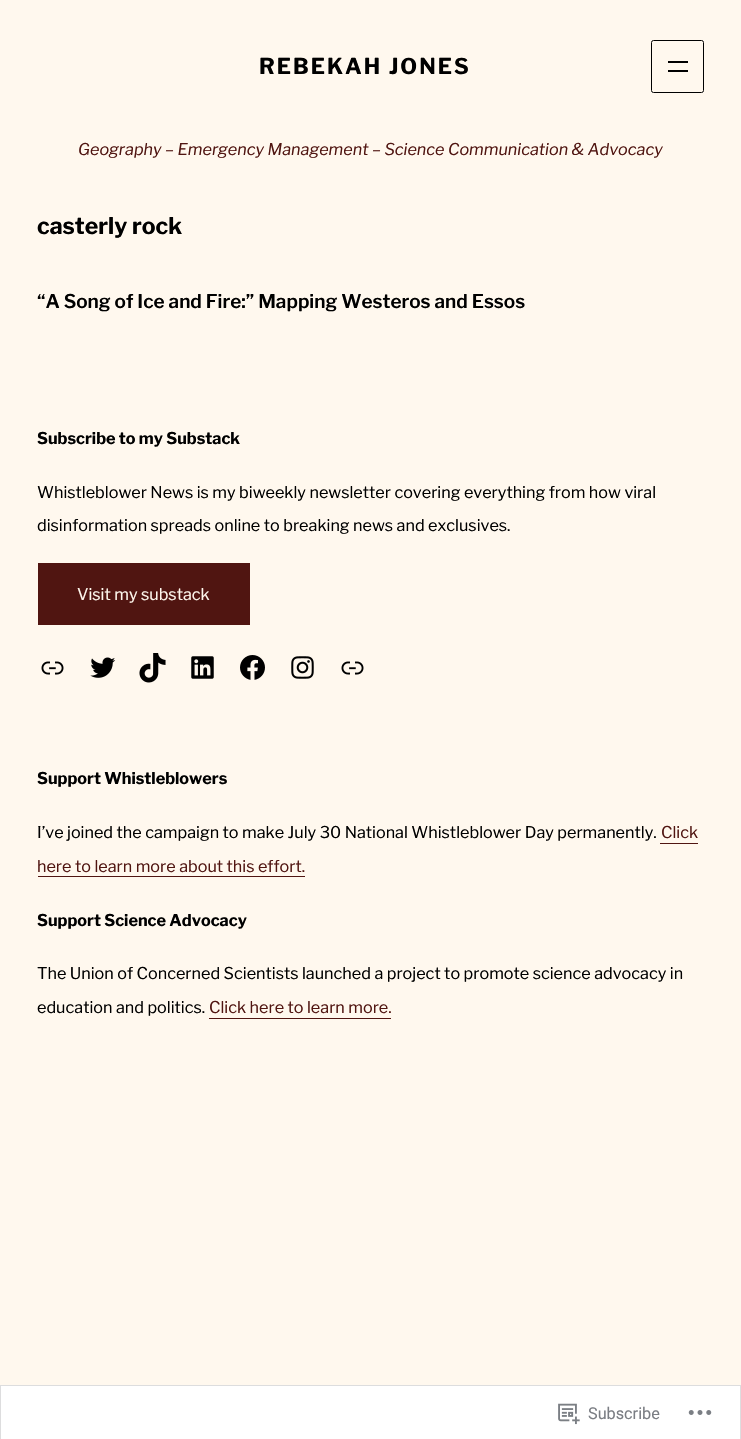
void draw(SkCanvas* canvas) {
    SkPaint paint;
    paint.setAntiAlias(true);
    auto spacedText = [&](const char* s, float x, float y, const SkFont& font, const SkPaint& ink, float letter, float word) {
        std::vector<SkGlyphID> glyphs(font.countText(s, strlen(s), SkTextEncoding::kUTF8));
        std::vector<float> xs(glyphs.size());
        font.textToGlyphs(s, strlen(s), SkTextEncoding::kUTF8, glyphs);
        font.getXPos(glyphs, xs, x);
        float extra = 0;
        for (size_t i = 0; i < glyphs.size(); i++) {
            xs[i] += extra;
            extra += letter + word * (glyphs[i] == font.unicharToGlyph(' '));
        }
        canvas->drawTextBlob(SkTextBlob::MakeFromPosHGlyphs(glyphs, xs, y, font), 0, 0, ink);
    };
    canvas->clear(0xFFFFF8EE);
    SkFont font1(fontMgr->matchFamilyStyle("Libre Franklin", SkFontStyle::Bold()), 21.75f);
    font1.setSubpixel(true);
    paint.setColor(0xFF000000);
    spacedText("REBEKAH JONES", 259, 74, font1, paint, 2, 0);
    paint.setStyle(SkPaint::kStroke_Style);
    paint.setStrokeWidth(1);
    canvas->drawRoundRect(SkRect::MakeXYWH(651.5f, 40.5f, 52, 52), 2, 2, paint);
    paint.setStyle(SkPaint::kFill_Style);
    canvas->drawRect(SkRect::MakeXYWH(668, 61, 20, 2), paint);
    canvas->drawRect(SkRect::MakeXYWH(668, 70, 20, 2), paint);
    SkFont font2(fontMgr->matchFamilyStyle("Libre Franklin", SkFontStyle::Italic()), 16.2f);
    font2.setSubpixel(true);
    paint.setColor(0xFF501511);
    canvas->drawString("Geography – Emergency Management – Science Communication & Advocacy", 78, 155, font2, paint);
    SkFont font3(fontMgr->matchFamilyStyle("Libre Franklin", SkFontStyle::Bold()), 23);
    font3.setSubpixel(true);
    paint.setColor(0xFF000000);
    canvas->drawString("casterly rock", 37, 234, font3, paint);
    SkFont font4(fontMgr->matchFamilyStyle("Libre Franklin", SkFontStyle(600, SkFontStyle::kNormal_Width, SkFontStyle::kUpright_Slant)), 18.95f);
    font4.setSubpixel(true);
    canvas->drawString("“A Song of Ice and Fire:” Mapping Westeros and Essos", 37, 308, font4, paint);
    SkFont font5(fontMgr->matchFamilyStyle("Libre Franklin", SkFontStyle::Bold()), 16.2f);
    font5.setSubpixel(true);
    canvas->drawString("Subscribe to my Substack", 37, 444, font5, paint);
    SkFont font6(fontMgr->matchFamilyStyle("Libre Franklin", SkFontStyle::Normal()), 16.2f);
    font6.setSubpixel(true);
    canvas->drawString("Whistleblower News is my biweekly newsletter covering everything from how viral", 37, 498, font6, paint);
    canvas->drawString("disinformation spreads online to breaking news and exclusives.", 37, 531, font6, paint);
    paint.setColor(0xFF501511);
    canvas->drawRect(SkRect::MakeXYWH(38, 563, 212, 62), paint);
    paint.setColor(0xFFFFF8EE);
    canvas->drawString("Visit my substack", 77, 600, font6, paint);
    canvas->drawImageRect(SkImages::DeferredFromEncodedData(SkData::MakeFromFileName("img1.png")), SkRect::MakeXYWH(41, 661, 23, 14), SkSamplingOptions());
    canvas->drawImageRect(SkImages::DeferredFromEncodedData(SkData::MakeFromFileName("img2.png")), SkRect::MakeXYWH(90, 657, 26, 21), SkSamplingOptions());
    canvas->drawImageRect(SkImages::DeferredFromEncodedData(SkData::MakeFromFileName("img3.png")), SkRect::MakeXYWH(139, 653, 27, 30), SkSamplingOptions());
    canvas->drawImageRect(SkImages::DeferredFromEncodedData(SkData::MakeFromFileName("img4.png")), SkRect::MakeXYWH(191, 656, 23, 23), SkSamplingOptions());
    canvas->drawImageRect(SkImages::DeferredFromEncodedData(SkData::MakeFromFileName("img5.png")), SkRect::MakeXYWH(240, 655, 25, 25), SkSamplingOptions());
    canvas->drawImageRect(SkImages::DeferredFromEncodedData(SkData::MakeFromFileName("img6.png")), SkRect::MakeXYWH(291, 656, 23, 23), SkSamplingOptions());
    canvas->drawImageRect(SkImages::DeferredFromEncodedData(SkData::MakeFromFileName("img1.png")), SkRect::MakeXYWH(341, 661, 23, 14), SkSamplingOptions());
    paint.setColor(0xFF000000);
    canvas->drawString("Support Whistleblowers", 37, 784, font5, paint);
    canvas->drawString("I’ve joined the campaign to make July 30 National Whistleblower Day permanently.", 37, 838, font6, paint);
    paint.setColor(0xFF501511);
    canvas->drawString("Click", 661, 838, font6, paint);
    canvas->drawRect(SkRect::MakeXYWH(660, 843, 38, 1), paint);
    canvas->drawString("here to learn more about this effort.", 37, 872, font6, paint);
    canvas->drawRect(SkRect::MakeXYWH(38, 876, 267, 1), paint);
    paint.setColor(0xFF000000);
    canvas->drawString("Support Science Advocacy", 37, 926, font5, paint);
    canvas->drawString("The Union of Concerned Scientists launched a project to promote science advocacy in", 37, 979, font6, paint);
    canvas->drawString("education and politics.", 37, 1013, font6, paint);
    paint.setColor(0xFF501511);
    canvas->drawString("Click here to learn more.", 209, 1013, font6, paint);
    canvas->drawRect(SkRect::MakeXYWH(209, 1018, 182, 1), paint);
    paint.setColor(0xFFFFFFFF);
    canvas->drawRect(SkRect::MakeXYWH(0.5f, 1385.5f, 740, 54), paint);
    paint.setStyle(SkPaint::kStroke_Style);
    paint.setColor(0xFFDDDDDE);
    canvas->drawRect(SkRect::MakeXYWH(0.5f, 1385.5f, 740, 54), paint);
    canvas->drawImageRect(SkImages::DeferredFromEncodedData(SkData::MakeFromFileName("img7.png")), SkRect::MakeXYWH(558, 1403, 22, 22), SkSamplingOptions());
    SkFont font7(fontMgr->matchFamilyStyle("Roboto", SkFontStyle::Normal()), 16.25f);
    font7.setSubpixel(true);
    paint.setStyle(SkPaint::kFill_Style);
    paint.setColor(0xFF7B7E84);
    canvas->drawString("Subscribe", 588, 1419, font7, paint);
    canvas->drawImageRect(SkImages::DeferredFromEncodedData(SkData::MakeFromFileName("img8.png")), SkRect::MakeXYWH(688, 1410, 24, 5), SkSamplingOptions());
}
